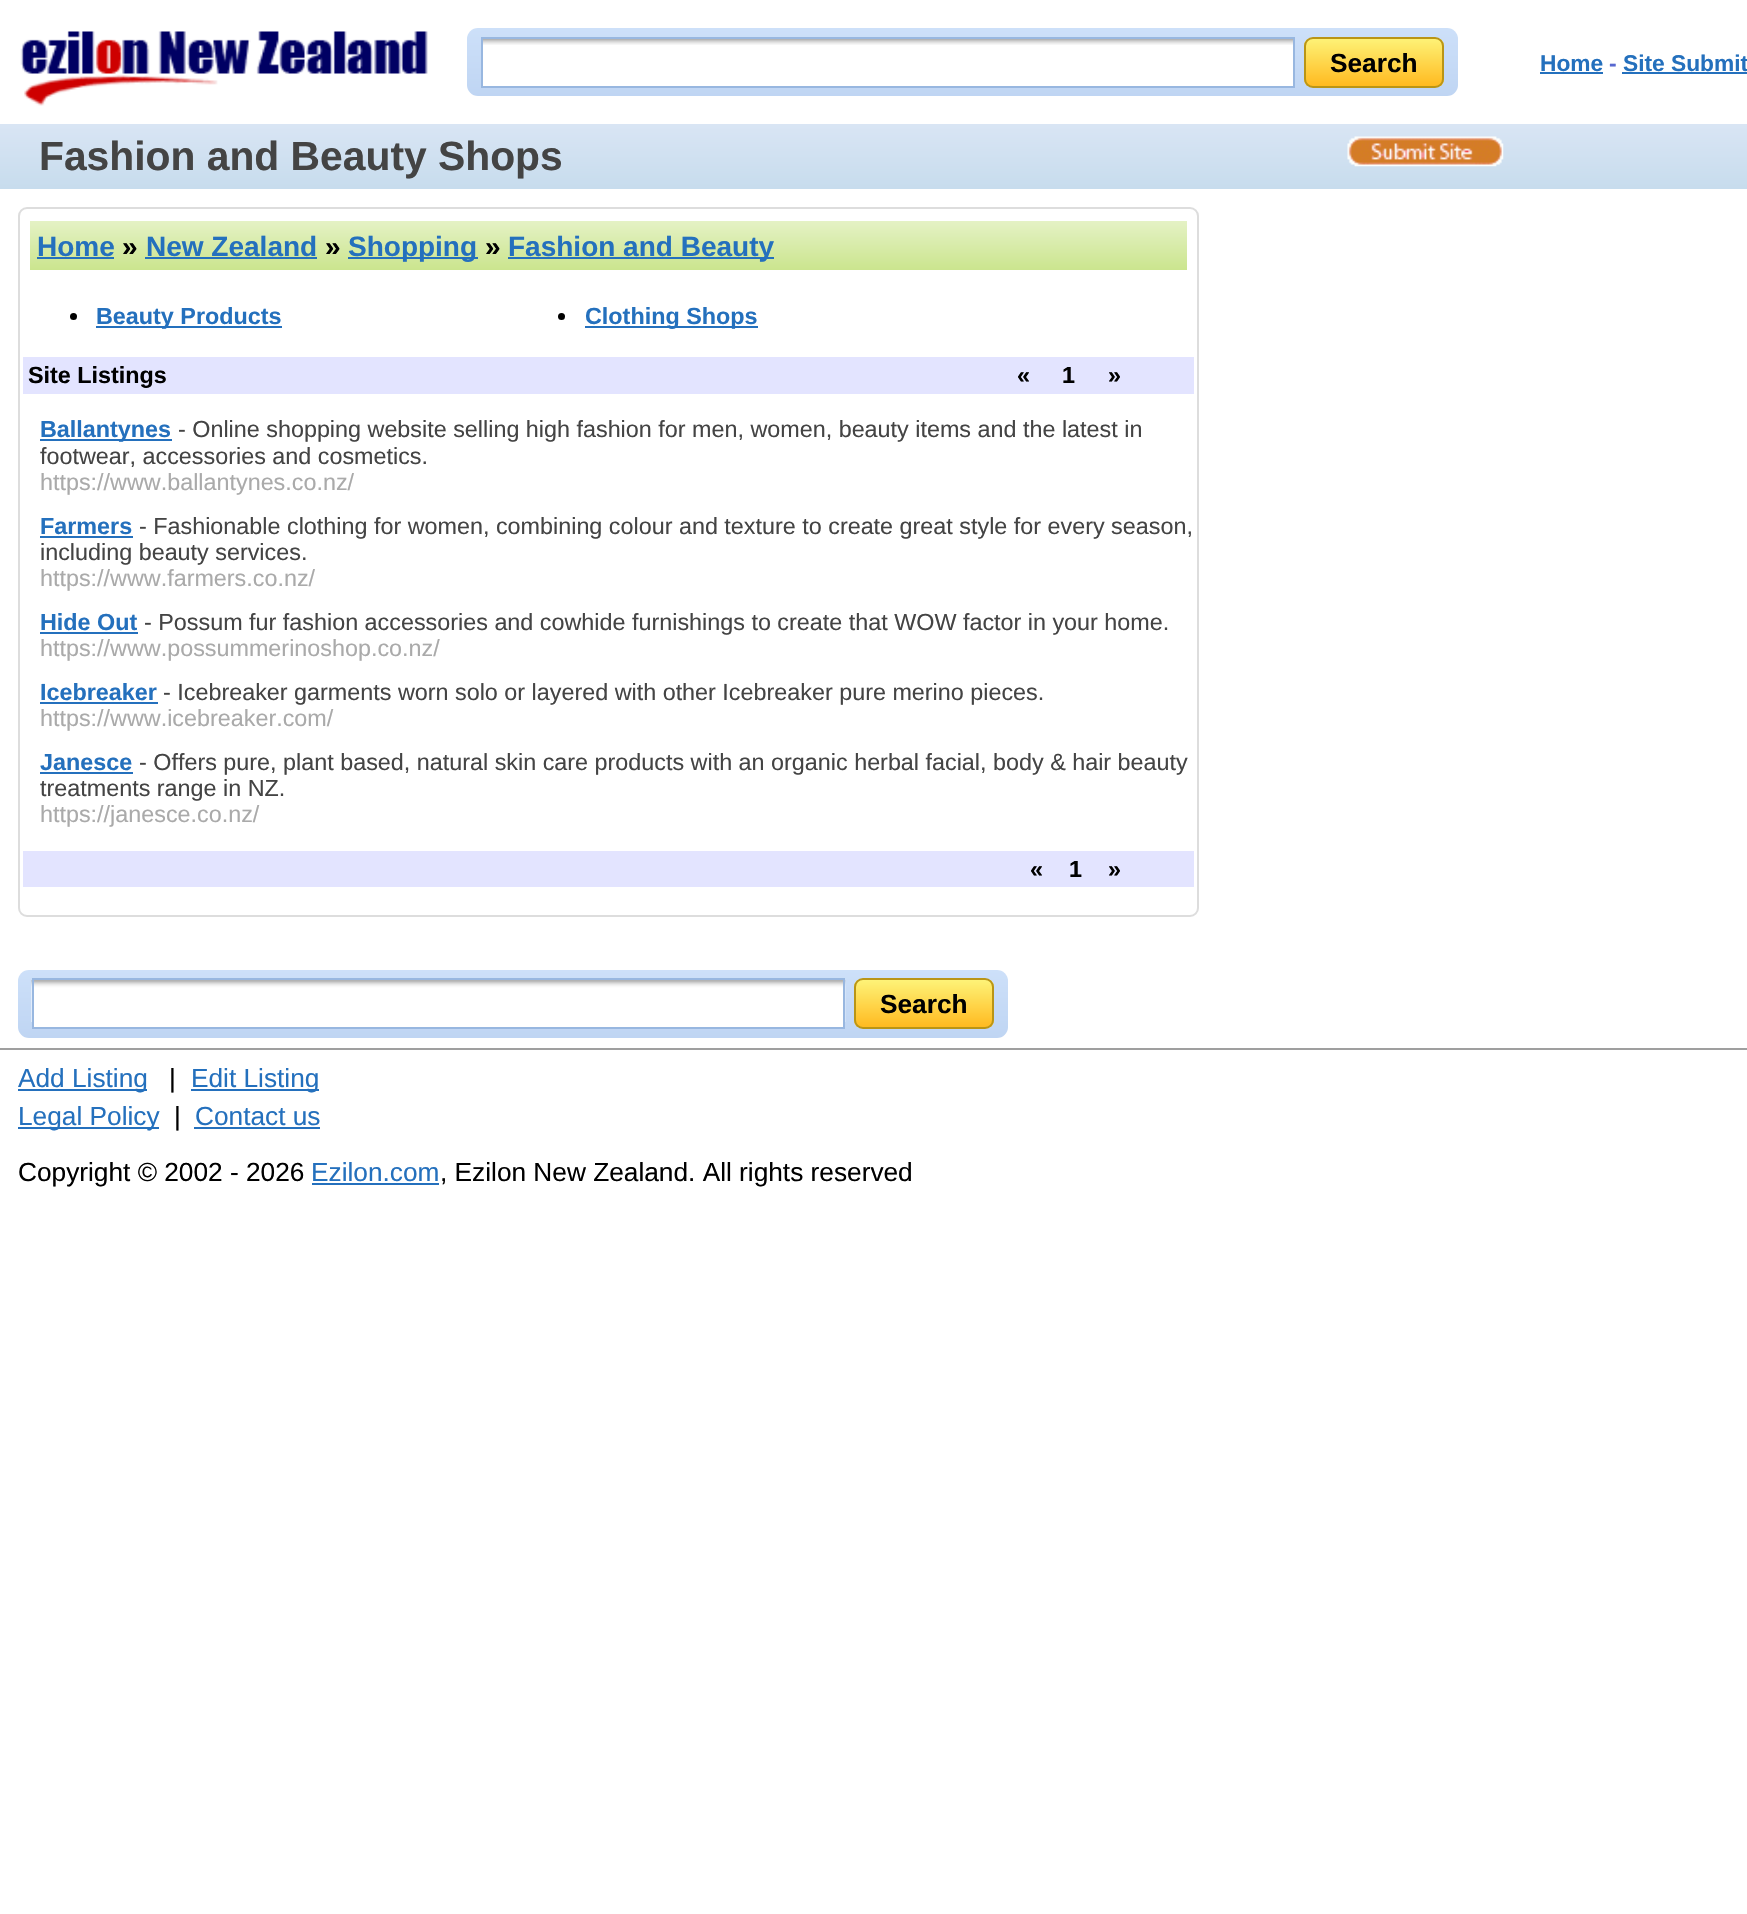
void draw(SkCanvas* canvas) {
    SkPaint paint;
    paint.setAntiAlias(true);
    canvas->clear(0xFFFFFFFF);
    canvas->drawImageRect(SkImages::DeferredFromEncodedData(SkData::MakeFromFileName("img1.png")), SkRect::MakeXYWH(20, 31, 408, 75), SkSamplingOptions());
    {
        const SkColor colors[] = {0xFFCDE0F9, 0xFFBFD5F3};
        const float stops[] = {0, 1};
        const SkPoint ends[] = {{963, 28}, {963, 96}};
        paint.setShader(SkGradientShader::MakeLinear(ends, colors, stops, 2, SkTileMode::kClamp));
        paint.setAlpha(255);
    }
    canvas->drawRoundRect(SkRect::MakeXYWH(467, 28, 991, 68), 11, 11, paint);
    paint.setShader(nullptr);
    paint.setColor(0xFFFFFFFF);
    canvas->drawRect(SkRect::MakeXYWH(483, 45, 810, 41), paint);
    canvas->drawImageRect(SkImages::DeferredFromEncodedData(SkData::MakeFromFileName("img2.png")), SkRect::MakeXYWH(483, 39, 810, 6), SkSamplingOptions());
    paint.setStyle(SkPaint::kStroke_Style);
    paint.setStrokeWidth(2);
    paint.setColor(0xFF98B7E0);
    canvas->drawRect(SkRect::MakeXYWH(482, 38, 812, 49), paint);
    canvas->save();
    canvas->clipPath(SkPathBuilder().moveTo(1313, 37).lineTo(1435, 37).cubicTo(1440, 37, 1444, 41, 1444, 46).lineTo(1444, 79).cubicTo(1444, 84, 1440, 88, 1435, 88).lineTo(1313, 88).cubicTo(1308, 88, 1304, 84, 1304, 79).lineTo(1304, 46).cubicTo(1304, 41, 1308, 37, 1313, 37).close().detach(), true);
    paint.setStyle(SkPaint::kFill_Style);
    {
        const SkColor colors[] = {0xFFFEF378, 0xFFFFBA20};
        const float stops[] = {0, 1};
        const SkPoint ends[] = {{1374, 38}, {1374, 86}};
        paint.setShader(SkGradientShader::MakeLinear(ends, colors, stops, 2, SkTileMode::kClamp));
        paint.setAlpha(255);
    }
    canvas->drawRect(SkRect::MakeXYWH(1304, 39, 140, 47), paint);
    canvas->restore();
    paint.setStyle(SkPaint::kStroke_Style);
    paint.setShader(nullptr);
    paint.setColor(0xFFBA9515);
    canvas->drawRoundRect(SkRect::MakeXYWH(1305, 38, 138, 49), 8, 8, paint);
    SkFont font1(fontMgr->matchFamilyStyle("Liberation Sans", SkFontStyle::Bold()), 26.25f);
    font1.setSubpixel(true);
    paint.setStyle(SkPaint::kFill_Style);
    paint.setColor(0xFF000000);
    canvas->drawString("Search", 1330, 72, font1, paint);
    SkFont font2(fontMgr->matchFamilyStyle("Liberation Sans", SkFontStyle::Bold()), 22.75f);
    font2.setSubpixel(true);
    paint.setColor(0xFF2470BD);
    canvas->drawString("Home", 1540, 71, font2, paint);
    canvas->drawRect(SkRect::MakeXYWH(1540, 72, 63, 2), paint);
    paint.setColor(0xFF5868D0);
    canvas->drawString("-", 1609, 71, font2, paint);
    paint.setColor(0xFF2470BD);
    canvas->drawString("Site Submit", 1623, 71, font2, paint);
    canvas->drawRect(SkRect::MakeXYWH(1622, 72, 125, 2), paint);
    {
        const SkColor colors[] = {0xFFD9E5F4, 0xFFC7DCED};
        const float stops[] = {0, 1};
        const SkPoint ends[] = {{874, 124}, {874, 189}};
        paint.setShader(SkGradientShader::MakeLinear(ends, colors, stops, 2, SkTileMode::kClamp));
        paint.setAlpha(255);
    }
    canvas->drawRect(SkRect::MakeXYWH(0, 124, 1747, 65), paint);
    SkFont font3(fontMgr->matchFamilyStyle("Liberation Sans", SkFontStyle::Bold()), 40.8f);
    font3.setSubpixel(true);
    paint.setShader(nullptr);
    paint.setColor(0xFF444444);
    canvas->drawString("Fashion and Beauty Shops", 39, 170, font3, paint);
    canvas->drawImageRect(SkImages::DeferredFromEncodedData(SkData::MakeFromFileName("img3.png")), SkRect::MakeXYWH(1347, 136, 157, 31), SkSamplingOptions());
    paint.setStyle(SkPaint::kStroke_Style);
    paint.setColor(0xFFDDDDDD);
    canvas->drawRoundRect(SkRect::MakeXYWH(19, 208, 1179, 708), 8, 8, paint);
    paint.setStyle(SkPaint::kFill_Style);
    {
        const SkColor colors[] = {0xFFE5F2C6, 0xFFCBE58E};
        const float stops[] = {0, 1};
        const SkPoint ends[] = {{608, 220}, {608, 270}};
        paint.setShader(SkGradientShader::MakeLinear(ends, colors, stops, 2, SkTileMode::kClamp));
        paint.setAlpha(255);
    }
    canvas->drawRect(SkRect::MakeXYWH(30, 221, 1157, 49), paint);
    SkFont font4(fontMgr->matchFamilyStyle("Liberation Sans", SkFontStyle::Bold()), 28);
    font4.setSubpixel(true);
    paint.setShader(nullptr);
    paint.setColor(0xFF2470BD);
    canvas->drawString("Home", 37, 256, font4, paint);
    canvas->drawRect(SkRect::MakeXYWH(37, 257, 77, 2), paint);
    paint.setColor(0xFF000000);
    canvas->drawString("»", 122, 256, font4, paint);
    paint.setColor(0xFF2470BD);
    canvas->drawString("New Zealand", 146, 256, font4, paint);
    canvas->drawRect(SkRect::MakeXYWH(145, 257, 172, 2), paint);
    paint.setColor(0xFF000000);
    canvas->drawString("»", 325, 256, font4, paint);
    paint.setColor(0xFF2470BD);
    canvas->drawRect(SkRect::MakeXYWH(348, 257, 130, 2), paint);
    canvas->drawString("Shopping", 348, 256, font4, paint);
    paint.setColor(0xFF000000);
    canvas->drawString("»", 485, 256, font4, paint);
    paint.setColor(0xFF2470BD);
    canvas->drawRect(SkRect::MakeXYWH(508, 257, 266, 2), paint);
    canvas->drawString("Fashion and Beauty", 508, 256, font4, paint);
    paint.setColor(0xFF000000);
    canvas->drawCircle(73.5f, 316.5f, 3.5f, paint);
    paint.setColor(0xFF2470BD);
    canvas->drawRect(SkRect::MakeXYWH(96, 326, 186, 2), paint);
    SkFont font5(fontMgr->matchFamilyStyle("Liberation Sans", SkFontStyle::Bold()), 23.35f);
    font5.setSubpixel(true);
    canvas->drawString("Beauty Products", 96, 324, font5, paint);
    paint.setColor(0xFF000000);
    canvas->drawCircle(561.5f, 316.5f, 3.5f, paint);
    paint.setColor(0xFF2470BD);
    canvas->drawRect(SkRect::MakeXYWH(585, 326, 173, 2), paint);
    canvas->drawString("Clothing Shops", 585, 324, font5, paint);
    paint.setColor(0xFFE3E4FF);
    canvas->drawRect(SkRect::MakeXYWH(23, 357, 1171, 37), paint);
    paint.setColor(0xFF000000);
    canvas->drawString("Site Listings", 28, 383, font5, paint);
    canvas->drawString("«", 1017, 383, font5, paint);
    canvas->drawString("1", 1062, 383, font5, paint);
    canvas->drawString("»", 1108, 383, font5, paint);
    paint.setColor(0xFF2470BD);
    canvas->drawRect(SkRect::MakeXYWH(40, 439, 132, 2), paint);
    canvas->drawString("Ballantynes", 40, 437, font5, paint);
    SkFont font6(fontMgr->matchFamilyStyle("Liberation Sans", SkFontStyle::Normal()), 23.35f);
    font6.setSubpixel(true);
    paint.setColor(0xFF444444);
    canvas->drawString("- Online shopping website selling high fashion for men, women, beauty items and the latest in", 178, 437, font6, paint);
    canvas->drawString("footwear, accessories and cosmetics.", 40, 464, font6, paint);
    paint.setColor(0xFFAAAAAA);
    canvas->drawString("https://www.ballantynes.co.nz/", 40, 490, font6, paint);
    paint.setColor(0xFF2470BD);
    canvas->drawString("Farmers", 40, 534, font5, paint);
    canvas->drawRect(SkRect::MakeXYWH(40, 536, 93, 2), paint);
    paint.setColor(0xFF444444);
    canvas->drawString("- Fashionable clothing for women, combining colour and texture to create great style for every season,", 139, 534, font6, paint);
    canvas->drawString("including beauty services.", 40, 560, font6, paint);
    paint.setColor(0xFFAAAAAA);
    canvas->drawString("https://www.farmers.co.nz/", 40, 586, font6, paint);
    paint.setColor(0xFF2470BD);
    canvas->drawString("Hide Out", 40, 630, font5, paint);
    canvas->drawRect(SkRect::MakeXYWH(40, 632, 98, 2), paint);
    paint.setColor(0xFF444444);
    canvas->drawString("- Possum fur fashion accessories and cowhide furnishings to create that WOW factor in your home.", 144, 630, font6, paint);
    paint.setColor(0xFFAAAAAA);
    canvas->drawString("https://www.possummerinoshop.co.nz/", 40, 656, font6, paint);
    paint.setColor(0xFF2470BD);
    canvas->drawString("Icebreaker", 40, 700, font5, paint);
    canvas->drawRect(SkRect::MakeXYWH(40, 702, 118, 2), paint);
    paint.setColor(0xFF444444);
    canvas->drawString("- Icebreaker garments worn solo or layered with other Icebreaker pure merino pieces.", 163, 700, font6, paint);
    paint.setColor(0xFFAAAAAA);
    canvas->drawString("https://www.icebreaker.com/", 40, 726, font6, paint);
    paint.setColor(0xFF2470BD);
    canvas->drawString("Janesce", 40, 770, font5, paint);
    canvas->drawRect(SkRect::MakeXYWH(40, 772, 93, 2), paint);
    paint.setColor(0xFF444444);
    canvas->drawString("- Offers pure, plant based, natural skin care products with an organic herbal facial, body & hair beauty", 139, 770, font6, paint);
    canvas->drawString("treatments range in NZ.", 40, 796, font6, paint);
    paint.setColor(0xFFAAAAAA);
    canvas->drawString("https://janesce.co.nz/", 40, 822, font6, paint);
    paint.setColor(0xFFE3E4FF);
    canvas->drawRect(SkRect::MakeXYWH(23, 851, 1171, 36), paint);
    paint.setColor(0xFF000000);
    canvas->drawString("«", 1030, 877, font5, paint);
    canvas->drawString("1", 1069, 877, font5, paint);
    canvas->drawString("»", 1108, 877, font5, paint);
    {
        const SkColor colors[] = {0xFFCDE0F9, 0xFFBFD5F3};
        const float stops[] = {0, 1};
        const SkPoint ends[] = {{513, 970}, {513, 1038}};
        paint.setShader(SkGradientShader::MakeLinear(ends, colors, stops, 2, SkTileMode::kClamp));
        paint.setAlpha(255);
    }
    canvas->drawRoundRect(SkRect::MakeXYWH(18, 970, 990, 68), 11, 11, paint);
    paint.setShader(nullptr);
    paint.setColor(0xFFFFFFFF);
    canvas->drawRect(SkRect::MakeXYWH(34, 1022, 809, 5), paint);
    canvas->drawImageRect(SkImages::DeferredFromEncodedData(SkData::MakeFromFileName("img4.png")), SkRect::MakeXYWH(31, 980, 815, 42), SkSamplingOptions());
    paint.setStyle(SkPaint::kStroke_Style);
    paint.setColor(0xFF98B7E0);
    canvas->drawRect(SkRect::MakeXYWH(33, 979, 811, 49), paint);
    canvas->save();
    canvas->clipPath(SkPathBuilder().moveTo(863, 978).lineTo(985, 978).cubicTo(990, 978, 994, 982, 994, 987).lineTo(994, 1020).cubicTo(994, 1025, 990, 1029, 985, 1029).lineTo(863, 1029).cubicTo(858, 1029, 854, 1025, 854, 1020).lineTo(854, 987).cubicTo(854, 982, 858, 978, 863, 978).close().detach(), true);
    paint.setStyle(SkPaint::kFill_Style);
    {
        const SkColor colors[] = {0xFFFEF378, 0xFFFFBA20};
        const float stops[] = {0, 1};
        const SkPoint ends[] = {{924, 980}, {924, 1027}};
        paint.setShader(SkGradientShader::MakeLinear(ends, colors, stops, 2, SkTileMode::kClamp));
        paint.setAlpha(255);
    }
    canvas->drawRect(SkRect::MakeXYWH(854, 980, 140, 47), paint);
    canvas->restore();
    paint.setStyle(SkPaint::kStroke_Style);
    paint.setShader(nullptr);
    paint.setColor(0xFFBA9515);
    canvas->drawRoundRect(SkRect::MakeXYWH(855, 979, 138, 49), 8, 8, paint);
    paint.setStyle(SkPaint::kFill_Style);
    paint.setColor(0xFF000000);
    canvas->drawString("Search", 880, 1013, font1, paint);
    paint.setColor(0xFF9F9F9F);
    canvas->drawRect(SkRect::MakeXYWH(0, 1048, 1747, 2), paint);
    paint.setColor(0xFF2470BD);
    canvas->drawRect(SkRect::MakeXYWH(18, 1089, 129, 2), paint);
    SkFont font7(fontMgr->matchFamilyStyle("Liberation Sans", SkFontStyle::Normal()), 26.25f);
    font7.setSubpixel(true);
    canvas->drawString("Add Listing", 18, 1087, font7, paint);
    paint.setColor(0xFF000000);
    canvas->drawString("|", 169, 1087, font7, paint);
    paint.setColor(0xFF2470BD);
    canvas->drawRect(SkRect::MakeXYWH(191, 1089, 128, 2), paint);
    canvas->drawString("Edit Listing", 191, 1087, font7, paint);
    canvas->drawRect(SkRect::MakeXYWH(18, 1127, 141, 2), paint);
    canvas->drawString("Legal Policy", 18, 1125, font7, paint);
    paint.setColor(0xFF000000);
    canvas->drawString("|", 174, 1125, font7, paint);
    paint.setColor(0xFF2470BD);
    canvas->drawString("Contact us", 195, 1125, font7, paint);
    canvas->drawRect(SkRect::MakeXYWH(194, 1127, 126, 2), paint);
    paint.setColor(0xFF000000);
    canvas->drawString("Copyright © 2002 - 2026", 18, 1181, font7, paint);
    paint.setColor(0xFF2470BD);
    canvas->drawString("Ezilon.com", 311, 1181, font7, paint);
    canvas->drawRect(SkRect::MakeXYWH(312, 1183, 127, 2), paint);
    paint.setColor(0xFF000000);
    canvas->drawString(", Ezilon New Zealand. All rights reserved", 440, 1181, font7, paint);
}
